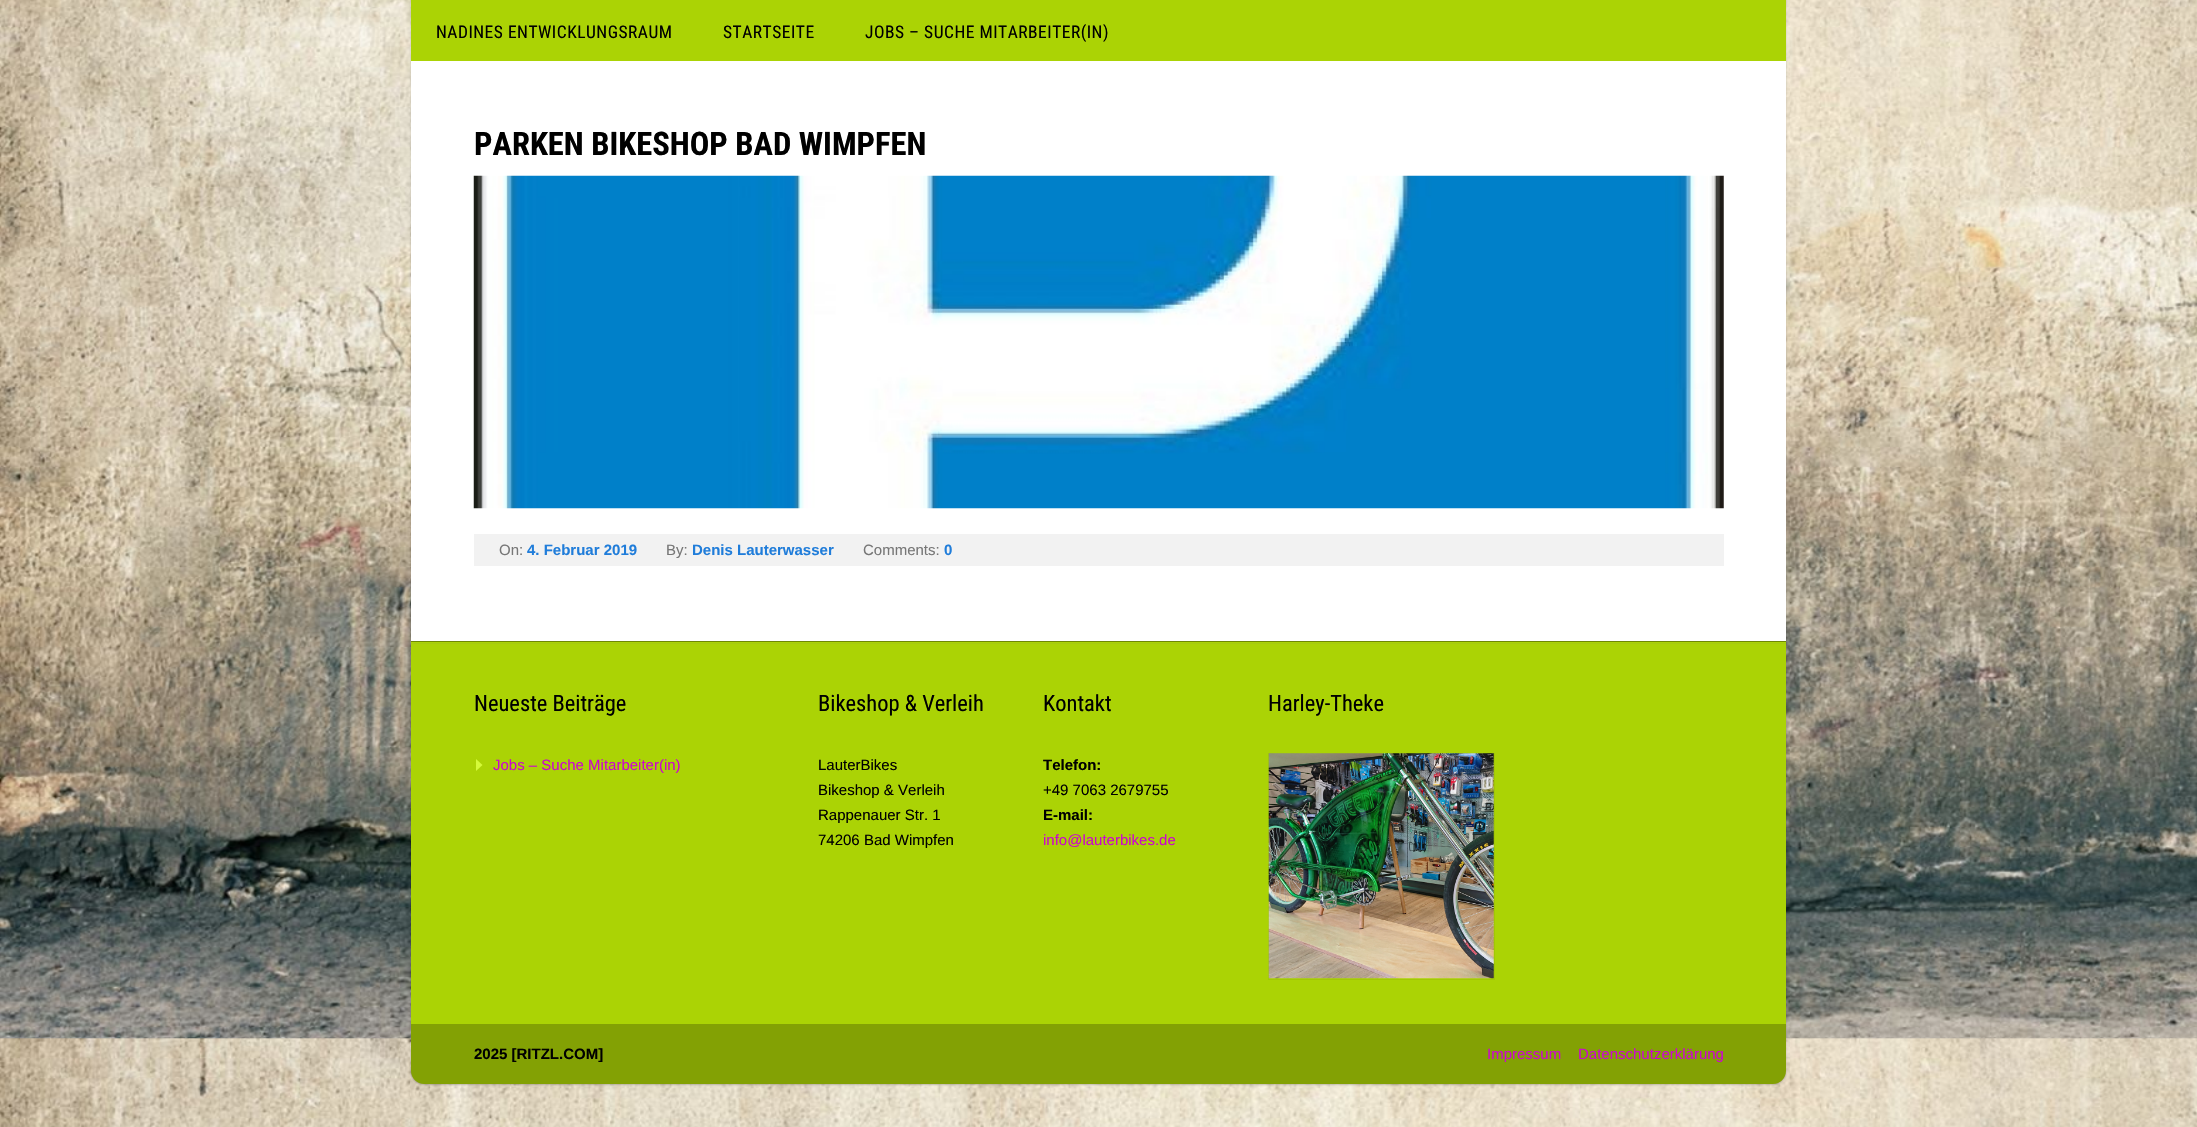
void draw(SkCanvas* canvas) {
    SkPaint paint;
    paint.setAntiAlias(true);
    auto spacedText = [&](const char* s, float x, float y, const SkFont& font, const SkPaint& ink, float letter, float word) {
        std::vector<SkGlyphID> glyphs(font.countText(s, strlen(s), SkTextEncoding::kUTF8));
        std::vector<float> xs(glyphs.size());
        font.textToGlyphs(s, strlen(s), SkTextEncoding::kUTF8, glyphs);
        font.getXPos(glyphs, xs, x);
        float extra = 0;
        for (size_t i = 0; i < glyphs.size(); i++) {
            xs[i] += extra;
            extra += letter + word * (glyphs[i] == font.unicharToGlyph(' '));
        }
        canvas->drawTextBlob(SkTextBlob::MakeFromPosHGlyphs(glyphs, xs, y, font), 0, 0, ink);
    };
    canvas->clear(0xFFFFFFFF);
    canvas->drawImageRect(SkImages::DeferredFromEncodedData(SkData::MakeFromFileName("img1.png")), SkRect::MakeXYWH(0, 0, 2197, 1127), SkSamplingOptions());
    paint.setColor(0x33000000);
    paint.setMaskFilter(SkMaskFilter::MakeBlur(kNormal_SkBlurStyle, 1));
    canvas->drawRoundRect(SkRect::MakeXYWH(411, -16, 1375, 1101), 13, 13, paint);
    paint.setMaskFilter(nullptr);
    paint.setColor(0xFFABD305);
    canvas->drawRect(SkRect::MakeXYWH(411, 0, 1375, 61), paint);
    SkFont font1(fontMgr->matchFamilyStyle("Roboto Condensed", SkFontStyle::Normal()), 17.5f);
    font1.setSubpixel(true);
    paint.setColor(0xFF000000);
    spacedText("NADINES ENTWICKLUNGSRAUM", 436, 38, font1, paint, 0.5f, 0);
    spacedText("STARTSEITE", 723, 38, font1, paint, 0.5f, 0);
    spacedText("JOBS – SUCHE MITARBEITER(IN)", 865, 38, font1, paint, 0.5f, 0);
    paint.setColor(0xFFFFFFFF);
    canvas->drawRect(SkRect::MakeXYWH(411, 61, 1375, 580), paint);
    SkFont font2(fontMgr->matchFamilyStyle("Roboto Condensed", SkFontStyle::Bold()), 32.5f);
    font2.setSubpixel(true);
    paint.setColor(0xFF000000);
    canvas->drawString("PARKEN BIKESHOP BAD WIMPFEN", 474, 155, font2, paint);
    canvas->drawImageRect(SkImages::DeferredFromEncodedData(SkData::MakeFromFileName("img2.png")), SkRect::MakeXYWH(473, 175, 1251, 334), SkSamplingOptions());
    paint.setColor(0xFFF2F2F2);
    canvas->drawRect(SkRect::MakeXYWH(474, 534, 1250, 32), paint);
    SkFont font3(fontMgr->matchFamilyStyle("Liberation Sans", SkFontStyle::Normal()), 15);
    font3.setSubpixel(true);
    paint.setColor(0xFF777777);
    canvas->drawString("On:", 499, 555, font3, paint);
    SkFont font4(fontMgr->matchFamilyStyle("Liberation Sans", SkFontStyle::Bold()), 15);
    font4.setSubpixel(true);
    paint.setColor(0xFF207DDA);
    canvas->drawString("4. Februar 2019", 527, 555, font4, paint);
    paint.setColor(0xFF777777);
    canvas->drawString("By:", 666, 555, font3, paint);
    paint.setColor(0xFF207DDA);
    canvas->drawString("Denis Lauterwasser", 692, 555, font4, paint);
    paint.setColor(0xFF777777);
    canvas->drawString("Comments:", 863, 555, font3, paint);
    paint.setColor(0xFF207DDA);
    canvas->drawString("0", 944, 555, font4, paint);
    paint.setColor(0xFFABD305);
    canvas->drawRect(SkRect::MakeXYWH(411, 642, 1375, 382), paint);
    paint.setColor(0xFFA6CA11);
    canvas->drawRect(SkRect::MakeXYWH(411, 643, 1375, 1), paint);
    paint.setColor(0xFF6E8803);
    canvas->drawRect(SkRect::MakeXYWH(411, 641, 1375, 1), paint);
    SkFont font5(fontMgr->matchFamilyStyle("Roboto Condensed", SkFontStyle::Normal()), 22.5f);
    font5.setSubpixel(true);
    paint.setColor(0xFF000000);
    canvas->drawString("Neueste Beiträge", 474, 711, font5, paint);
    paint.setColor(0xFFD5FA39);
    canvas->drawPath(SkPathBuilder().moveTo(476, 771).lineTo(476, 759).lineTo(482.5f, 765).close().detach(), paint);
    paint.setColor(0xFFCC08CC);
    canvas->drawString("Jobs – Suche Mitarbeiter(in)", 493, 770, font3, paint);
    paint.setColor(0xFF000000);
    canvas->drawString("Bikeshop & Verleih", 818, 711, font5, paint);
    canvas->drawString("LauterBikes", 818, 770, font3, paint);
    canvas->drawString("Bikeshop & Verleih", 818, 795, font3, paint);
    canvas->drawString("Rappenauer Str. 1", 818, 820, font3, paint);
    canvas->drawString("74206 Bad Wimpfen", 818, 845, font3, paint);
    canvas->drawString("Kontakt", 1043, 711, font5, paint);
    canvas->drawString("Telefon:", 1043, 770, font4, paint);
    canvas->drawString("+49 7063 2679755", 1043, 795, font3, paint);
    canvas->drawString("E-mail:", 1043, 820, font4, paint);
    paint.setColor(0xFFCC08CC);
    canvas->drawString("info@lauterbikes.de", 1043, 845, font3, paint);
    paint.setColor(0xFF000000);
    canvas->drawString("Harley-Theke", 1268, 711, font5, paint);
    paint.setStyle(SkPaint::kStroke_Style);
    paint.setStrokeWidth(1);
    paint.setColor(0xFFA2C805);
    canvas->drawRect(SkRect::MakeXYWH(1268.5f, 753.5f, 226, 226), paint);
    canvas->drawImageRect(SkImages::DeferredFromEncodedData(SkData::MakeFromFileName("img3.png")), SkRect::MakeXYWH(1268, 753, 226, 226), SkSamplingOptions());
    paint.setStyle(SkPaint::kFill_Style);
    paint.setColor(0xFF83A104);
    canvas->drawPath(SkPathBuilder().moveTo(411, 1024).lineTo(1786, 1024).lineTo(1786, 1071).cubicTo(1786, 1078, 1780, 1084, 1773, 1084).lineTo(424, 1084).cubicTo(417, 1084, 411, 1078, 411, 1071).close().detach(), paint);
    paint.setColor(0xFF000000);
    canvas->drawString("2025 [RITZL.COM]", 474, 1059, font4, paint);
    paint.setColor(0xFFCC08CC);
    canvas->drawString("Impressum", 1487, 1059, font3, paint);
    canvas->drawString("Datenschutzerklärung", 1578, 1059, font3, paint);
}
